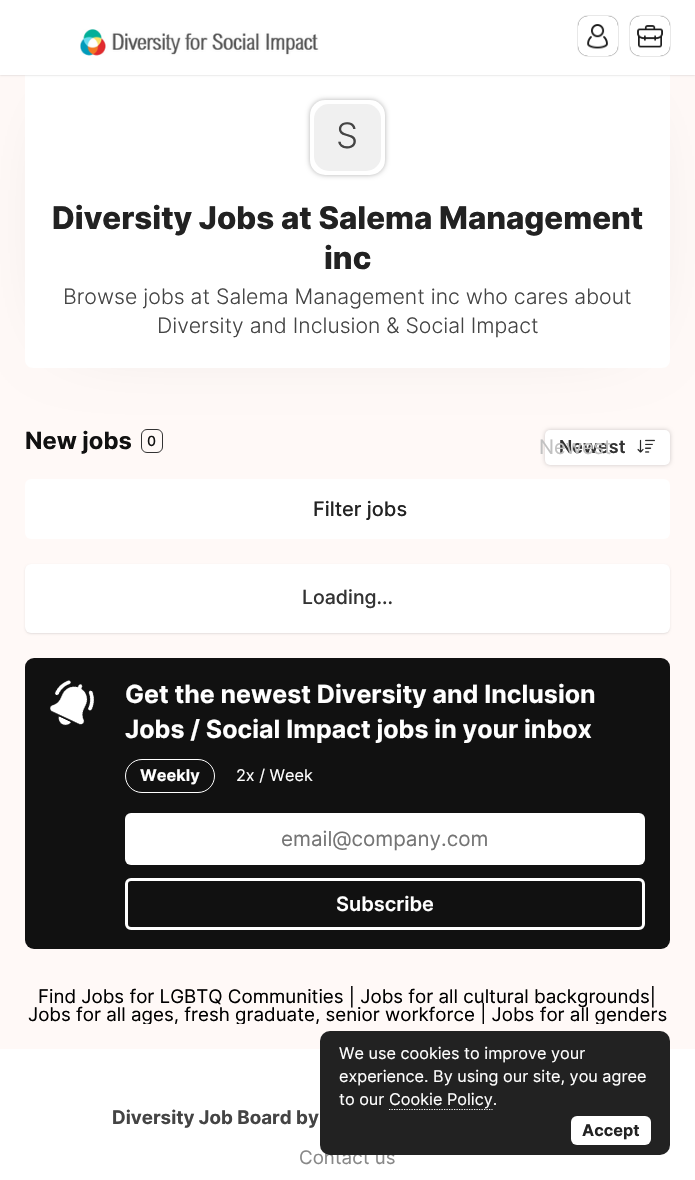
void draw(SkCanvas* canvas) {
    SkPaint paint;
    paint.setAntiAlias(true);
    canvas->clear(0xFFFFF9F7);
    paint.setStyle(SkPaint::kStroke_Style);
    paint.setStrokeWidth(1);
    paint.setColor(0xFF333333);
    canvas->drawRoundRect(SkRect::MakeXYWH(141.5f, 429.5f, 21, 23), 5.5f, 5.5f, paint);
    paint.setStyle(SkPaint::kFill_Style);
    paint.setColor(0x33000000);
    paint.setMaskFilter(SkMaskFilter::MakeBlur(kNormal_SkBlurStyle, 2));
    canvas->drawRoundRect(SkRect::MakeXYWH(545, 430, 125, 35), 5, 5, paint);
    paint.setMaskFilter(nullptr);
    paint.setColor(0xFFFFFFFF);
    canvas->drawRoundRect(SkRect::MakeXYWH(545, 430, 125, 35), 5, 5, paint);
    canvas->drawImageRect(SkImages::DeferredFromEncodedData(SkData::MakeFromFileName("img4.png")), SkRect::MakeXYWH(637, 439, 18, 14), SkSamplingOptions());
    paint.setColor(0x33000000);
    paint.setMaskFilter(SkMaskFilter::MakeBlur(kNormal_SkBlurStyle, 40.5f));
    canvas->drawRect(SkRect::MakeXYWH(75, 125, 545, 193), paint);
    paint.setMaskFilter(nullptr);
    paint.setColor(0xFFFFFFFF);
    canvas->drawPath(SkPathBuilder().moveTo(25, 75).lineTo(670, 75).lineTo(670, 360).cubicTo(670, 364.5f, 666.5f, 368, 662, 368).lineTo(33, 368).cubicTo(28.5f, 368, 25, 364.5f, 25, 360).close().detach(), paint);
    paint.setColor(0x33000000);
    paint.setMaskFilter(SkMaskFilter::MakeBlur(kNormal_SkBlurStyle, 1));
    canvas->drawRect(SkRect::MakeXYWH(0, 0, 695, 75), paint);
    paint.setMaskFilter(nullptr);
    paint.setColor(0xFFFFFFFF);
    canvas->drawRect(SkRect::MakeXYWH(0, 0, 695, 75), paint);
    canvas->drawImageRect(SkImages::DeferredFromEncodedData(SkData::MakeFromFileName("img1.png")), SkRect::MakeXYWH(80, 29, 239, 27), SkSamplingOptions());
    paint.setColor(0xE6000000);
    paint.setMaskFilter(SkMaskFilter::MakeBlur(kNormal_SkBlurStyle, 0.5f));
    canvas->drawRoundRect(SkRect::MakeXYWH(578, 16, 40, 40), 10, 10, paint);
    paint.setMaskFilter(nullptr);
    paint.setColor(0xFFFFFFFF);
    canvas->drawRoundRect(SkRect::MakeXYWH(578, 16, 40, 40), 10, 10, paint);
    canvas->drawImageRect(SkImages::DeferredFromEncodedData(SkData::MakeFromFileName("img2.png")), SkRect::MakeXYWH(587, 24, 21, 25), SkSamplingOptions());
    paint.setColor(0xE6000000);
    paint.setMaskFilter(SkMaskFilter::MakeBlur(kNormal_SkBlurStyle, 0.5f));
    canvas->drawRoundRect(SkRect::MakeXYWH(630, 16, 40, 40), 10, 10, paint);
    paint.setMaskFilter(nullptr);
    paint.setColor(0xFFFFFFFF);
    canvas->drawRoundRect(SkRect::MakeXYWH(630, 16, 40, 40), 10, 10, paint);
    canvas->drawImageRect(SkImages::DeferredFromEncodedData(SkData::MakeFromFileName("img3.png")), SkRect::MakeXYWH(637, 25, 26, 23), SkSamplingOptions());
    paint.setColor(0x4D000000);
    paint.setMaskFilter(SkMaskFilter::MakeBlur(kNormal_SkBlurStyle, 2.5f));
    canvas->drawRoundRect(SkRect::MakeXYWH(310, 100, 75, 75), 15, 15, paint);
    paint.setMaskFilter(nullptr);
    paint.setColor(0xFFFFFFFF);
    canvas->drawRoundRect(SkRect::MakeXYWH(310, 100, 75, 75), 15, 15, paint);
    paint.setColor(0xFFF0F0F0);
    canvas->drawRoundRect(SkRect::MakeXYWH(314, 104, 67, 67), 15, 15, paint);
    SkFont font1(fontMgr->matchFamilyStyle("Inter", SkFontStyle(300, SkFontStyle::kNormal_Width, SkFontStyle::kUpright_Slant)), 35);
    font1.setSubpixel(true);
    paint.setColor(0xFF444444);
    canvas->drawString("S", 336, 148, font1, paint);
    SkFont font2(fontMgr->matchFamilyStyle("Inter", SkFontStyle(800, SkFontStyle::kNormal_Width, SkFontStyle::kUpright_Slant)), 31.25f);
    font2.setSubpixel(true);
    paint.setColor(0xFF222222);
    canvas->drawString("Diversity Jobs at Salema Management", 52, 229, font2, paint);
    canvas->drawString("inc", 324, 269, font2, paint);
    SkFont font3(fontMgr->matchFamilyStyle("Inter", SkFontStyle(300, SkFontStyle::kNormal_Width, SkFontStyle::kUpright_Slant)), 21.25f);
    font3.setSubpixel(true);
    paint.setColor(0xFF444444);
    canvas->drawString("Browse jobs at Salema Management inc who cares about", 63, 304, font3, paint);
    canvas->drawString("Diversity and Inclusion & Social Impact", 157, 333, font3, paint);
    SkFont font4(fontMgr->matchFamilyStyle("Inter", SkFontStyle::Bold()), 23.75f);
    font4.setSubpixel(true);
    paint.setColor(0xFF111111);
    canvas->drawString("New jobs", 25, 449, font4, paint);
    SkFont font5(fontMgr->matchFamilyStyle("Inter", SkFontStyle(500, SkFontStyle::kNormal_Width, SkFontStyle::kUpright_Slant)), 14);
    font5.setSubpixel(true);
    canvas->drawString("0", 147, 446, font5, paint);
    SkFont font6(fontMgr->matchFamilyStyle("Inter", SkFontStyle(600, SkFontStyle::kNormal_Width, SkFontStyle::kUpright_Slant)), 18);
    font6.setSubpixel(true);
    paint.setColor(0xFF333333);
    canvas->drawString("Newest", 559, 453, font6, paint);
    SkFont font7(fontMgr->matchFamilyStyle("Inter", SkFontStyle::Normal()), 20);
    font7.setSubpixel(true);
    paint.setColor(0xFFC1C1C1);
    canvas->drawString("Newest", 539, 454, font7, paint);
    paint.setColor(0xFFFFFFFF);
    canvas->drawRoundRect(SkRect::MakeXYWH(25, 479, 645, 60), 6, 6, paint);
    SkFont font8(fontMgr->matchFamilyStyle("Inter", SkFontStyle(500, SkFontStyle::kNormal_Width, SkFontStyle::kUpright_Slant)), 20);
    font8.setSubpixel(true);
    paint.setColor(0xFF222222);
    canvas->drawString("Filter jobs", 313, 516, font8, paint);
    paint.setColor(0x1A000000);
    paint.setMaskFilter(SkMaskFilter::MakeBlur(kNormal_SkBlurStyle, 1));
    canvas->drawRoundRect(SkRect::MakeXYWH(25, 565, 645, 69), 6, 6, paint);
    paint.setMaskFilter(nullptr);
    paint.setColor(0xFFFFFFFF);
    canvas->drawRoundRect(SkRect::MakeXYWH(25, 564, 645, 69), 6, 6, paint);
    SkFont font9(fontMgr->matchFamilyStyle("Inter", SkFontStyle(500, SkFontStyle::kNormal_Width, SkFontStyle::kUpright_Slant)), 19.5f);
    font9.setSubpixel(true);
    paint.setColor(0xFF333333);
    canvas->drawString("Loading...", 302, 604, font9, paint);
    paint.setColor(0xFF111111);
    canvas->drawRoundRect(SkRect::MakeXYWH(25, 658, 645, 291), 9, 9, paint);
    canvas->drawImageRect(SkImages::DeferredFromEncodedData(SkData::MakeFromFileName("img5.png")), SkRect::MakeXYWH(50, 680, 45, 46), SkSamplingOptions());
    SkFont font10(fontMgr->matchFamilyStyle("Inter", SkFontStyle::Bold()), 25);
    font10.setSubpixel(true);
    paint.setColor(0xFFFFFFFF);
    canvas->drawString("Get the newest Diversity and Inclusion", 125, 703, font10, paint);
    canvas->drawString("Jobs / Social Impact jobs in your inbox", 125, 738, font10, paint);
    paint.setStyle(SkPaint::kStroke_Style);
    canvas->drawRoundRect(SkRect::MakeXYWH(125.5f, 759.5f, 89, 33), 16.5f, 16.5f, paint);
    SkFont font11(fontMgr->matchFamilyStyle("Inter", SkFontStyle::Bold()), 16.25f);
    font11.setSubpixel(true);
    paint.setStyle(SkPaint::kFill_Style);
    canvas->drawString("Weekly", 140, 781, font11, paint);
    SkFont font12(fontMgr->matchFamilyStyle("Inter", SkFontStyle::Normal()), 16.25f);
    font12.setSubpixel(true);
    canvas->drawString("2x / Week", 236, 781, font12, paint);
    canvas->drawRoundRect(SkRect::MakeXYWH(125, 813, 520, 52), 6, 6, paint);
    SkFont font13(fontMgr->matchFamilyStyle("Inter", SkFontStyle::Normal()), 20.6f);
    font13.setSubpixel(true);
    paint.setColor(0xFF757575);
    canvas->drawString("email@company.com", 281, 846, font13, paint);
    paint.setStyle(SkPaint::kStroke_Style);
    paint.setStrokeWidth(3);
    paint.setColor(0xFFFFFFFF);
    canvas->drawRoundRect(SkRect::MakeXYWH(126.5f, 879.5f, 517, 49), 4.5f, 4.5f, paint);
    SkFont font14(fontMgr->matchFamilyStyle("Inter", SkFontStyle(600, SkFontStyle::kNormal_Width, SkFontStyle::kUpright_Slant)), 20);
    font14.setSubpixel(true);
    paint.setStyle(SkPaint::kFill_Style);
    canvas->drawString("Subscribe", 336, 911, font14, paint);
    canvas->save();
    canvas->clipPath(SkPathBuilder().moveTo(25, 986).lineTo(670, 986).lineTo(670, 1016).cubicTo(670, 1020.5f, 666.5f, 1024, 662, 1024).lineTo(33, 1024).cubicTo(28.5f, 1024, 25, 1020.5f, 25, 1016).close().detach(), true);
    SkFont font15(fontMgr->matchFamilyStyle("Inter", SkFontStyle::Normal()), 18.75f);
    font15.setSubpixel(true);
    paint.setColor(0xFF000000);
    canvas->drawString("Find Jobs for LGBTQ Communities | Jobs for all cultural backgrounds|", 38, 1003, font15, paint);
    canvas->drawString("Jobs for all ages, fresh graduate, senior workforce | Jobs for all genders", 28, 1021, font15, paint);
    canvas->restore();
    paint.setColor(0xFFFFFFFF);
    canvas->drawRect(SkRect::MakeXYWH(0, 1049, 695, 131), paint);
    SkFont font16(fontMgr->matchFamilyStyle("Inter", SkFontStyle::Bold()), 18.75f);
    font16.setSubpixel(true);
    paint.setColor(0xFF444444);
    canvas->drawString("Diversity Job Board by", 112, 1124, font16, paint);
    paint.setColor(0xFF888888);
    canvas->drawString("Contact us", 299, 1164, font15, paint);
    paint.setColor(0xFF222222);
    canvas->drawRoundRect(SkRect::MakeXYWH(320, 1031, 350, 124), 10, 10, paint);
    paint.setColor(0xFFFFFFFF);
    canvas->drawString("We use cookies to improve your", 339, 1059, font12, paint);
    canvas->drawString("experience. By using our site, you agree", 339, 1082, font12, paint);
    canvas->drawString("to our", 339, 1105, font12, paint);
    paint.setStyle(SkPaint::kStroke_Style);
    paint.setStrokeWidth(1.2f);
    paint.setPathEffect(SkDashPathEffect::Make({{1.25f, 1.25f}}, 0));
    canvas->drawPath(SkPathBuilder().moveTo(389, 1109.5f).lineTo(492.5f, 1109.5f).detach(), paint);
    paint.setPathEffect(nullptr);
    paint.setStyle(SkPaint::kFill_Style);
    canvas->drawString("Cookie Policy.", 389, 1105, font12, paint);
    canvas->drawRoundRect(SkRect::MakeXYWH(571, 1116, 80, 29), 6, 6, paint);
    paint.setColor(0xFF222222);
    canvas->drawString("Accept", 582, 1136, font11, paint);
}
